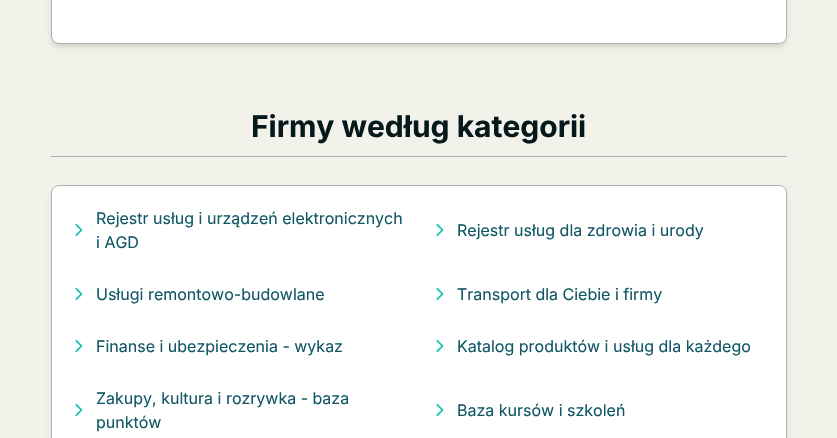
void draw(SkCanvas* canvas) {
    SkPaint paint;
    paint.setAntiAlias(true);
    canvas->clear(0xFFF3F2EA);
    paint.setColor(0x1A000000);
    paint.setMaskFilter(SkMaskFilter::MakeBlur(kNormal_SkBlurStyle, 2));
    canvas->drawRoundRect(SkRect::MakeXYWH(53, -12, 732, 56), 6, 6, paint);
    paint.setMaskFilter(nullptr);
    paint.setMaskFilter(SkMaskFilter::MakeBlur(kNormal_SkBlurStyle, 3));
    canvas->drawRoundRect(SkRect::MakeXYWH(52, -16, 734, 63), 7, 7, paint);
    paint.setMaskFilter(nullptr);
    paint.setColor(0xFFFFFFFF);
    canvas->drawRoundRect(SkRect::MakeXYWH(51.5f, -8.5f, 735, 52), 7.5f, 7.5f, paint);
    paint.setStyle(SkPaint::kStroke_Style);
    paint.setStrokeWidth(1);
    paint.setColor(0xFFB2B2B2);
    canvas->drawRoundRect(SkRect::MakeXYWH(51.5f, -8.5f, 735, 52), 7.5f, 7.5f, paint);
    paint.setStyle(SkPaint::kFill_Style);
    canvas->drawRect(SkRect::MakeXYWH(51, 156, 736, 1), paint);
    SkFont font1(fontMgr->matchFamilyStyle("Inter", SkFontStyle::Bold()), 30);
    font1.setSubpixel(true);
    paint.setColor(0xFF05191D);
    canvas->drawString("Firmy według kategorii", 251, 137, font1, paint);
    paint.setColor(0x1A000000);
    paint.setMaskFilter(SkMaskFilter::MakeBlur(kNormal_SkBlurStyle, 3));
    canvas->drawRoundRect(SkRect::MakeXYWH(52, 190, 734, 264), 7, 7, paint);
    paint.setMaskFilter(nullptr);
    paint.setColor(0xFFFFFFFF);
    canvas->drawRoundRect(SkRect::MakeXYWH(51.5f, 185.5f, 735, 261), 7.5f, 7.5f, paint);
    paint.setStyle(SkPaint::kStroke_Style);
    paint.setColor(0xFFB2B2B2);
    canvas->drawRoundRect(SkRect::MakeXYWH(51.5f, 185.5f, 735, 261), 7.5f, 7.5f, paint);
    canvas->drawImageRect(SkImages::DeferredFromEncodedData(SkData::MakeFromFileName("img1.png")), SkRect::MakeXYWH(75, 223, 8, 14), SkSamplingOptions());
    SkFont font2(fontMgr->matchFamilyStyle("Inter", SkFontStyle::Normal()), 16);
    font2.setSubpixel(true);
    paint.setStyle(SkPaint::kFill_Style);
    paint.setColor(0xFF115765);
    canvas->drawString("Rejestr usług i urządzeń elektronicznych", 96, 224, font2, paint);
    canvas->drawString("i AGD", 96, 248, font2, paint);
    canvas->drawImageRect(SkImages::DeferredFromEncodedData(SkData::MakeFromFileName("img1.png")), SkRect::MakeXYWH(436, 223, 8, 14), SkSamplingOptions());
    canvas->drawString("Rejestr usług dla zdrowia i urody", 457, 236, font2, paint);
    canvas->drawImageRect(SkImages::DeferredFromEncodedData(SkData::MakeFromFileName("img1.png")), SkRect::MakeXYWH(75, 287, 8, 14), SkSamplingOptions());
    canvas->drawString("Usługi remontowo-budowlane", 96, 300, font2, paint);
    canvas->drawImageRect(SkImages::DeferredFromEncodedData(SkData::MakeFromFileName("img1.png")), SkRect::MakeXYWH(436, 287, 8, 14), SkSamplingOptions());
    canvas->drawString("Transport dla Ciebie i firmy", 457, 300, font2, paint);
    canvas->drawImageRect(SkImages::DeferredFromEncodedData(SkData::MakeFromFileName("img1.png")), SkRect::MakeXYWH(75, 339, 8, 14), SkSamplingOptions());
    canvas->drawString("Finanse i ubezpieczenia - wykaz", 96, 352, font2, paint);
    canvas->drawImageRect(SkImages::DeferredFromEncodedData(SkData::MakeFromFileName("img1.png")), SkRect::MakeXYWH(436, 339, 8, 14), SkSamplingOptions());
    canvas->drawString("Katalog produktów i usług dla każdego", 457, 352, font2, paint);
    canvas->drawImageRect(SkImages::DeferredFromEncodedData(SkData::MakeFromFileName("img1.png")), SkRect::MakeXYWH(75, 403, 8, 14), SkSamplingOptions());
    canvas->drawString("Zakupy, kultura i rozrywka - baza", 96, 404, font2, paint);
    canvas->drawString("punktów", 96, 428, font2, paint);
    canvas->drawImageRect(SkImages::DeferredFromEncodedData(SkData::MakeFromFileName("img1.png")), SkRect::MakeXYWH(436, 403, 8, 14), SkSamplingOptions());
    canvas->drawString("Baza kursów i szkoleń", 457, 416, font2, paint);
}
